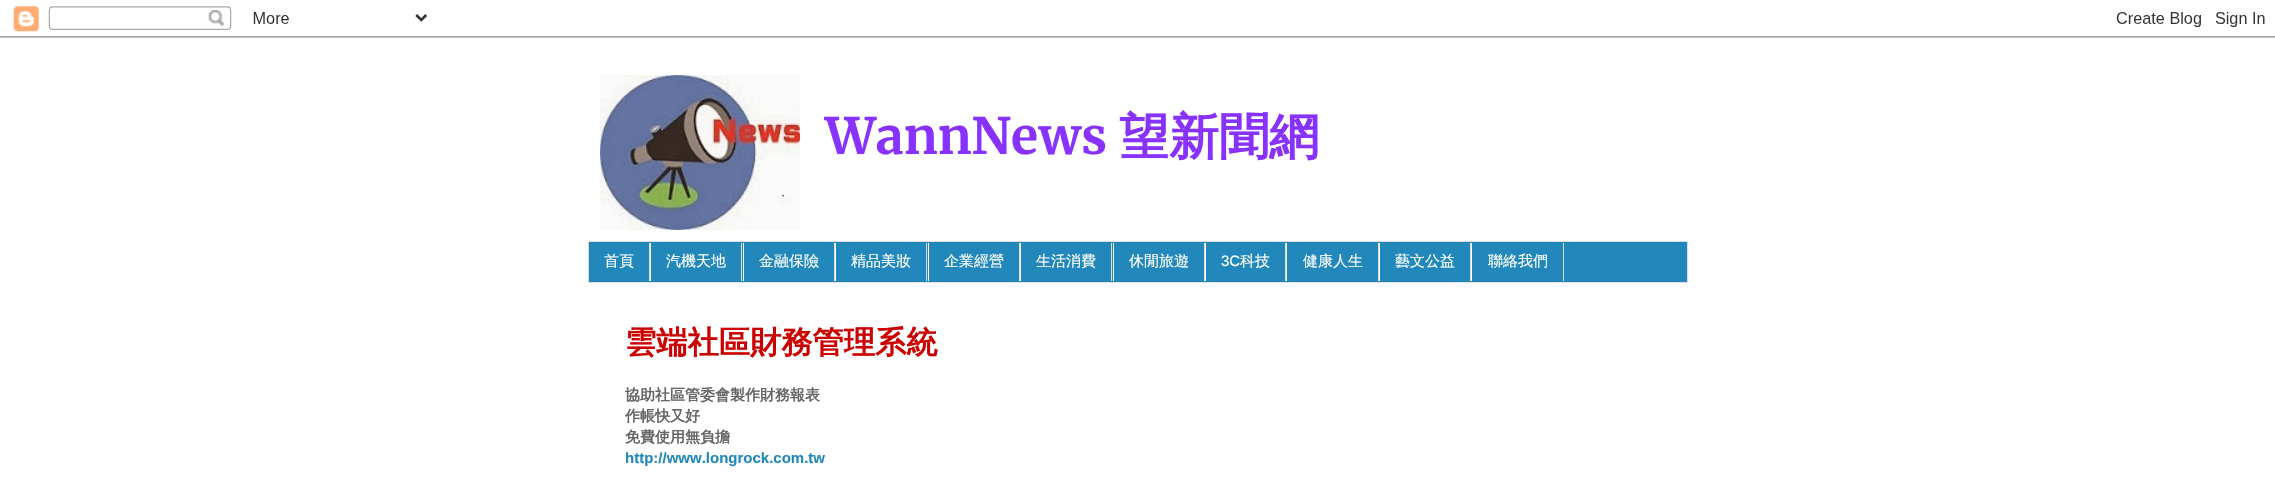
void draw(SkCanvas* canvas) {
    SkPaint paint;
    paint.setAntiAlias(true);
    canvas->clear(0xFFFFFFFF);
    canvas->drawImageRect(SkImages::DeferredFromEncodedData(SkData::MakeFromFileName("img1.png")), SkRect::MakeXYWH(0, 6, 2275, 32), SkSamplingOptions());
    canvas->drawImageRect(SkImages::DeferredFromEncodedData(SkData::MakeFromFileName("img2.png")), SkRect::MakeXYWH(600, 75, 200, 155), SkSamplingOptions());
    SkFont font1(fontMgr->matchFamilyStyle("Merriweather", SkFontStyle(300, SkFontStyle::kNormal_Width, SkFontStyle::kUpright_Slant)), 50);
    font1.setSubpixel(true);
    paint.setColor(0xFF8832FF);
    canvas->drawString("WannNews", 825, 154, font1, paint);
    SkFont font2(fontMgr->matchFamilyStyle("WenQuanYi Zen Hei", SkFontStyle::Bold()), 50);
    font2.setSubpixel(true);
    canvas->drawString("望新聞網", 1119, 154, font2, paint);
    paint.setColor(0xFF2288BB);
    canvas->drawRect(SkRect::MakeXYWH(588.5f, 241.5f, 1099, 41), paint);
    paint.setStyle(SkPaint::kStroke_Style);
    paint.setStrokeWidth(1);
    paint.setColor(0xFFDDDDDD);
    canvas->drawRect(SkRect::MakeXYWH(588.5f, 241.5f, 1099, 41), paint);
    paint.setStyle(SkPaint::kFill_Style);
    canvas->drawRect(SkRect::MakeXYWH(649, 243, 1, 38), paint);
    SkFont font3(fontMgr->matchFamilyStyle("WenQuanYi Zen Hei", SkFontStyle(500, SkFontStyle::kNormal_Width, SkFontStyle::kUpright_Slant)), 15);
    font3.setSubpixel(true);
    paint.setColor(0xFFFFFFFF);
    canvas->drawString("首頁", 604, 266, font3, paint);
    paint.setColor(0xFFDDDDDD);
    canvas->drawRect(SkRect::MakeXYWH(741, 243, 1, 38), paint);
    paint.setColor(0xFFFFFFFF);
    canvas->drawRect(SkRect::MakeXYWH(650, 243, 1, 38), paint);
    canvas->drawString("汽機天地", 666, 266, font3, paint);
    paint.setColor(0xFFDDDDDD);
    canvas->drawRect(SkRect::MakeXYWH(834, 243, 1, 38), paint);
    paint.setColor(0xFFFFFFFF);
    canvas->drawRect(SkRect::MakeXYWH(743, 243, 1, 38), paint);
    canvas->drawString("金融保險", 759, 266, font3, paint);
    paint.setColor(0xFFDDDDDD);
    canvas->drawRect(SkRect::MakeXYWH(926, 243, 1, 38), paint);
    paint.setColor(0xFFFFFFFF);
    canvas->drawRect(SkRect::MakeXYWH(835, 243, 1, 38), paint);
    canvas->drawString("精品美妝", 851, 266, font3, paint);
    paint.setColor(0xFFDDDDDD);
    canvas->drawRect(SkRect::MakeXYWH(1019, 243, 1, 38), paint);
    paint.setColor(0xFFFFFFFF);
    canvas->drawRect(SkRect::MakeXYWH(928, 243, 1, 38), paint);
    canvas->drawString("企業經營", 944, 266, font3, paint);
    paint.setColor(0xFFDDDDDD);
    canvas->drawRect(SkRect::MakeXYWH(1111, 243, 1, 38), paint);
    paint.setColor(0xFFFFFFFF);
    canvas->drawRect(SkRect::MakeXYWH(1020, 243, 1, 38), paint);
    canvas->drawString("生活消費", 1036, 266, font3, paint);
    paint.setColor(0xFFDDDDDD);
    canvas->drawRect(SkRect::MakeXYWH(1204, 243, 1, 38), paint);
    paint.setColor(0xFFFFFFFF);
    canvas->drawRect(SkRect::MakeXYWH(1113, 243, 1, 38), paint);
    canvas->drawString("休閒旅遊", 1129, 266, font3, paint);
    paint.setColor(0xFFDDDDDD);
    canvas->drawRect(SkRect::MakeXYWH(1285, 243, 1, 38), paint);
    paint.setColor(0xFFFFFFFF);
    canvas->drawRect(SkRect::MakeXYWH(1205, 243, 1, 38), paint);
    SkFont font4(fontMgr->matchFamilyStyle("Liberation Sans", SkFontStyle::Normal()), 15);
    font4.setSubpixel(true);
    canvas->drawString("3C", 1221, 266, font4, paint);
    canvas->drawString("科技", 1240, 266, font3, paint);
    paint.setColor(0xFFDDDDDD);
    canvas->drawRect(SkRect::MakeXYWH(1378, 243, 1, 38), paint);
    paint.setColor(0xFFFFFFFF);
    canvas->drawRect(SkRect::MakeXYWH(1286, 243, 1, 38), paint);
    canvas->drawString("健康人生", 1303, 266, font3, paint);
    paint.setColor(0xFFDDDDDD);
    canvas->drawRect(SkRect::MakeXYWH(1470, 243, 1, 38), paint);
    paint.setColor(0xFFFFFFFF);
    canvas->drawRect(SkRect::MakeXYWH(1379, 243, 1, 38), paint);
    canvas->drawString("藝文公益", 1395, 266, font3, paint);
    paint.setColor(0xFFDDDDDD);
    canvas->drawRect(SkRect::MakeXYWH(1563, 243, 1, 38), paint);
    paint.setColor(0xFFFFFFFF);
    canvas->drawRect(SkRect::MakeXYWH(1471, 243, 1, 38), paint);
    canvas->drawString("聯絡我們", 1488, 266, font3, paint);
    SkFont font5(fontMgr->matchFamilyStyle("WenQuanYi Zen Hei", SkFontStyle::Bold()), 31.25f);
    font5.setSubpixel(true);
    paint.setColor(0xFFCC0000);
    canvas->drawString("雲端社區財務管理系統", 625, 353, font5, paint);
    SkFont font6(fontMgr->matchFamilyStyle("WenQuanYi Zen Hei", SkFontStyle::Bold()), 15);
    font6.setSubpixel(true);
    paint.setColor(0xFF666666);
    canvas->drawString("協助社區管委會製作財務報表", 625, 400, font6, paint);
    canvas->drawString("作帳快又好", 625, 421, font6, paint);
    canvas->drawString("免費使用無負擔", 625, 442, font6, paint);
    SkFont font7(fontMgr->matchFamilyStyle("Liberation Sans", SkFontStyle::Bold()), 15);
    font7.setSubpixel(true);
    paint.setColor(0xFF2288BB);
    canvas->drawString("http://www.longrock.com.tw", 625, 463, font7, paint);
}
